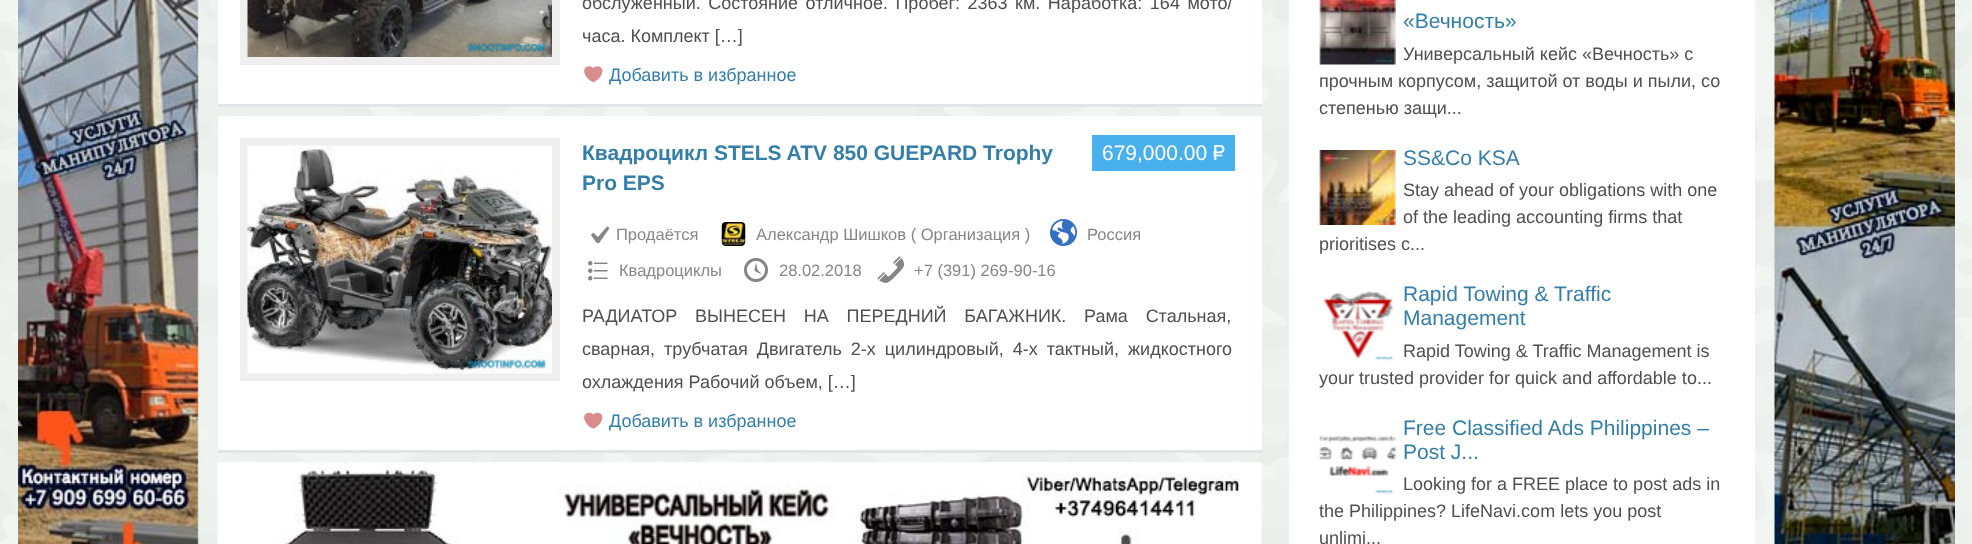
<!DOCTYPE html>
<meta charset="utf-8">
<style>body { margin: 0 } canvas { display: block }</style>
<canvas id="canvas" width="1972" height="544"></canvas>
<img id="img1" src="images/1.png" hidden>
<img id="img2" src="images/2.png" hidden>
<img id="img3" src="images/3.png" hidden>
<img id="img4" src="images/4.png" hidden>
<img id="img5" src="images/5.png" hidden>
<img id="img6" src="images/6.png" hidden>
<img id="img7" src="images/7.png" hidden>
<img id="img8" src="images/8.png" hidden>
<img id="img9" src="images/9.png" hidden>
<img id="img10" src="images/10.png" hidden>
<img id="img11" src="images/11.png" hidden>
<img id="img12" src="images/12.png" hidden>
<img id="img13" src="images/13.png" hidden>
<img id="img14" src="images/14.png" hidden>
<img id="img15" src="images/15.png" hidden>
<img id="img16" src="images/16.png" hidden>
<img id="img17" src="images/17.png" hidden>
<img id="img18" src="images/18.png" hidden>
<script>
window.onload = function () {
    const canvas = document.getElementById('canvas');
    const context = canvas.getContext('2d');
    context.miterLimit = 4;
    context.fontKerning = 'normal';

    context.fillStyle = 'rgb(243, 248, 244)';
    context.fillRect(0, 0, 1972, 544);
    context.drawImage(document.getElementById('img1'), 0, 0, 1972, 544);
    context.drawImage(document.getElementById('img2'), 18, 0, 181, 544);
    context.drawImage(document.getElementById('img3'), 1774, 0, 181, 544);
    context.fillStyle = 'rgb(227, 228, 231)';
    context.beginPath();
    context.moveTo(218, 104);
    context.lineTo(218, 107);
    context.lineTo(1262, 107);
    context.lineTo(1262, -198);
    context.lineTo(1262, 104);
    context.closePath();
    context.fill();
    context.fillStyle = 'rgb(255, 255, 255)';
    context.fillRect(218, 0, 1044, 104);
    context.fillStyle = 'rgb(239, 239, 239)';
    context.fillRect(240, 0, 320, 65);
    context.drawImage(document.getElementById('img4'), 247, 0, 305, 57);
    context.drawImage(document.getElementById('img5'), 584, 66, 19, 17);
    context.fillStyle = 'rgb(227, 228, 231)';
    context.beginPath();
    context.moveTo(218, 450);
    context.lineTo(218, 453);
    context.lineTo(1262, 453);
    context.lineTo(1262, 119);
    context.lineTo(1262, 450);
    context.closePath();
    context.fill();
    context.fillStyle = 'rgb(255, 255, 255)';
    context.fillRect(218, 116, 1044, 334);
    context.fillStyle = 'rgb(239, 239, 239)';
    context.fillRect(240, 138, 320, 243);
    context.drawImage(document.getElementById('img6'), 247, 145, 305, 229);
    context.fillStyle = 'rgb(71, 176, 237)';
    context.fillRect(1092, 135, 143, 36);
    context.drawImage(document.getElementById('img7'), 591, 226, 19, 18);
    context.drawImage(document.getElementById('img8'), 721, 222, 25, 24);
    context.drawImage(document.getElementById('img9'), 1050, 219, 27, 27);
    context.drawImage(document.getElementById('img10'), 588, 261, 20, 20);
    context.drawImage(document.getElementById('img11'), 744, 258, 24, 24);
    context.drawImage(document.getElementById('img12'), 877, 256, 28, 27);
    context.drawImage(document.getElementById('img13'), 584, 412, 19, 17);
    context.fillStyle = 'rgb(255, 255, 255)';
    context.fillRect(1289, 0, 466, 544);
    context.drawImage(document.getElementById('img14'), 1319, 0, 77, 65);
    context.drawImage(document.getElementById('img15'), 1319, 150, 77, 75);
    context.drawImage(document.getElementById('img16'), 1323, 291, 71, 70);
    context.drawImage(document.getElementById('img17'), 1319, 435, 77, 59);
    context.drawImage(document.getElementById('img18'), 217, 462, 1045, 82);
    context.wordSpacing = '2.5px';
    context.font = '18px Liberation Sans';
    context.fillStyle = 'rgb(79, 79, 79)';
    context.fillText('обслуженный. Состояние отличное. Пробег: 2363 км. Наработка: 164 мото/', 582, 9);
    context.wordSpacing = '0px';
    context.fillText('часа. Комплект […]', 582, 42);
    context.fillStyle = 'rgb(52, 126, 169)';
    context.fillText('Добавить в избранное', 609, 81);
    context.font = 'bold 21px Liberation Sans';
    context.fillText('Квадроцикл STELS ATV 850 GUEPARD Trophy', 582, 160);
    context.fillText('Pro EPS', 582, 190);
    context.font = '21px Liberation Sans';
    context.fillStyle = 'rgb(255, 255, 255)';
    context.fillText('679,000.00', 1102, 160);
    context.font = '21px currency';
    context.fillText('₽', 1213, 160);
    context.font = '16.5px Liberation Sans';
    context.fillStyle = 'rgb(134, 134, 134)';
    context.fillText('Продаётся', 616, 240);
    context.fillText('Александр Шишков ( Организация )', 756, 240);
    context.fillText('Россия', 1087, 240);
    context.fillText('Квадроциклы', 619, 276);
    context.fillText('28.02.2018', 779, 276);
    context.fillText('+7 (391) 269-90-16', 914, 276);
    context.wordSpacing = '12.75px';
    context.font = '18px Liberation Sans';
    context.fillStyle = 'rgb(79, 79, 79)';
    context.fillText('РАДИАТОР ВЫНЕСЕН НА ПЕРЕДНИЙ БАГАЖНИК. Рама Стальная,', 582, 322);
    context.wordSpacing = '4px';
    context.fillText('сварная, трубчатая Двигатель 2-х цилиндровый, 4-х тактный, жидкостного', 582, 355);
    context.wordSpacing = '0px';
    context.fillText('охлаждения Рабочий объем, […]', 582, 388);
    context.fillStyle = 'rgb(52, 126, 169)';
    context.fillText('Добавить в избранное', 609, 427);
    context.font = '21px Liberation Sans';
    context.fillText('«Вечность»', 1403, 28);
    context.font = '18px Liberation Sans';
    context.fillStyle = 'rgb(79, 79, 79)';
    context.fillText('Универсальный кейс «Вечность» с', 1403, 60);
    context.fillText('прочным корпусом, защитой от воды и пыли, со', 1319, 87);
    context.fillText('степенью защи...', 1319, 114);
    context.font = '21px Liberation Sans';
    context.fillStyle = 'rgb(52, 126, 169)';
    context.fillText('SS&Co KSA', 1403, 165);
    context.font = '18px Liberation Sans';
    context.fillStyle = 'rgb(79, 79, 79)';
    context.fillText('Stay ahead of your obligations with one', 1403, 196);
    context.fillText('of the leading accounting firms that', 1403, 223);
    context.fillText('prioritises c...', 1319, 250);
    context.font = '21px Liberation Sans';
    context.fillStyle = 'rgb(52, 126, 169)';
    context.fillText('Rapid Towing & Traffic', 1403, 301);
    context.fillText('Management', 1403, 325);
    context.font = '18px Liberation Sans';
    context.fillStyle = 'rgb(79, 79, 79)';
    context.fillText('Rapid Towing & Traffic Management is', 1403, 357);
    context.fillText('your trusted provider for quick and affordable to...', 1319, 384);
    context.font = '21px Liberation Sans';
    context.fillStyle = 'rgb(52, 126, 169)';
    context.fillText('Free Classified Ads Philippines –', 1403, 435);
    context.fillText('Post J...', 1403, 459);
    context.font = '18px Liberation Sans';
    context.fillStyle = 'rgb(79, 79, 79)';
    context.fillText('Looking for a FREE place to post ads in', 1403, 490);
    context.fillText('the Philippines? LifeNavi.com lets you post', 1319, 517);
    context.fillText('unlimi...', 1319, 544);
};
</script>
